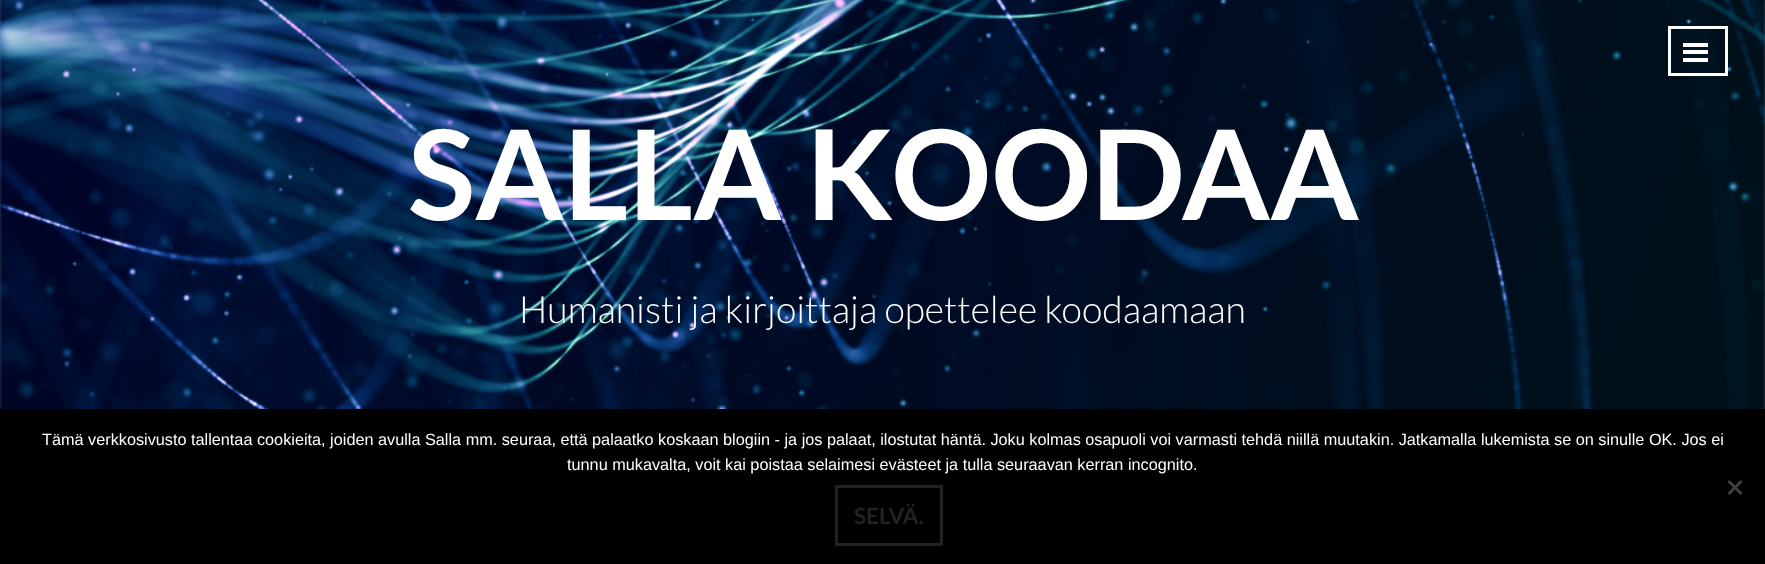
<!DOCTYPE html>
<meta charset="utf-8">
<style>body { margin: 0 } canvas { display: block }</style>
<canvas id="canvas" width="1765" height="564"></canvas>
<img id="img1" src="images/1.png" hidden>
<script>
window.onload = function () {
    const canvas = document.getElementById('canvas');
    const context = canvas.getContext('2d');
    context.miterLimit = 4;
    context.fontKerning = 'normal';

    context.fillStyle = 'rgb(255, 255, 255)';
    context.fillRect(0, 0, 1765, 564);
    context.drawImage(document.getElementById('img1'), 0, 0, 1765, 409);
    context.strokeStyle = 'rgb(255, 255, 255)';
    context.lineWidth = 3;
    context.strokeRect(1669.5, 27.5, 57, 47);
    context.fillRect(1683, 50, 25, 4);
    context.fillRect(1683, 43, 25, 4);
    context.fillRect(1683, 58, 25, 4);
    context.fillStyle = 'rgb(0, 0, 0)';
    context.fillRect(0, 409, 1765, 155);
    context.fillStyle = 'rgb(64, 64, 64)';
    context.beginPath();
    context.moveTo(1740.5, 480);
    context.lineTo(1742.5, 482);
    context.lineTo(1729.5, 495);
    context.lineTo(1727.5, 493);
    context.closePath();
    context.fill();
    context.beginPath();
    context.moveTo(1727.5, 482);
    context.lineTo(1729.5, 480);
    context.lineTo(1742.5, 493);
    context.lineTo(1740.5, 495);
    context.closePath();
    context.fill();
    context.strokeStyle = 'rgb(34, 34, 34)';
    context.strokeRect(836.5, 486.5, 105, 58);
    context.font = 'bold 125px Lato';
    context.fillStyle = 'rgb(255, 255, 255)';
    context.fillText('SALLA KOODAA', 408, 220);
    context.font = '300 37.5px Lato';
    context.fillText('Humanisti ja kirjoittaja opettelee koodaamaan', 519, 323);
    context.font = '16.25px Liberation Sans';
    context.fillText('Tämä verkkosivusto tallentaa cookieita, joiden avulla Salla mm. seuraa, että palaatko koskaan blogiin - ja jos palaat, ilostutat häntä. Joku kolmas osapuoli voi varmasti tehdä niillä muutakin. Jatkamalla lukemista se on sinulle OK. Jos ei', 42, 445);
    context.fillText('tunnu mukavalta, voit kai poistaa selaimesi evästeet ja tulla seuraavan kerran incognito.', 567, 470);
    context.font = 'bold 22.5px Lato';
    context.fillStyle = 'rgb(34, 34, 34)';
    context.fillText('SELVÄ.', 854, 524);
};
</script>
